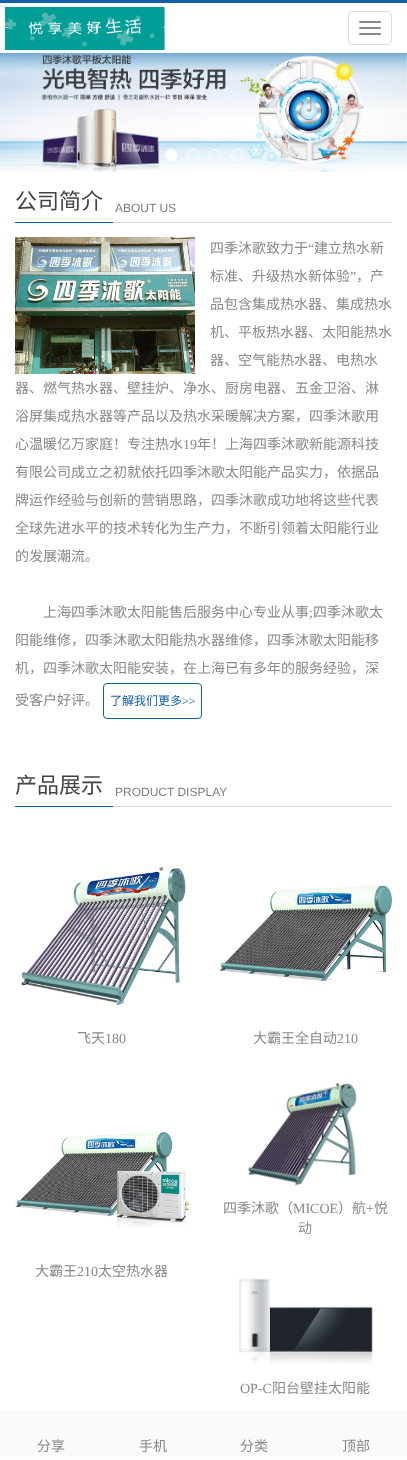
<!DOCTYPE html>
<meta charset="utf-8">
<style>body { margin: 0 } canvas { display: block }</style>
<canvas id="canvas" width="407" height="1460"></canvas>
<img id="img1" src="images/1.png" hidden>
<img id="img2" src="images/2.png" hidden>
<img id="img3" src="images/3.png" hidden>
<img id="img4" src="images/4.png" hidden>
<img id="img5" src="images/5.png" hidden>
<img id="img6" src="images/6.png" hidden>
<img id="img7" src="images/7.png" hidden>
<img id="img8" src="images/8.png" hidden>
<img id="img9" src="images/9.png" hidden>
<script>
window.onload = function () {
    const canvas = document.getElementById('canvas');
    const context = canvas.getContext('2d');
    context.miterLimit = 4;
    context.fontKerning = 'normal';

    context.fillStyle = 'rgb(255, 255, 255)';
    context.fillRect(0, 0, 407, 1460);
    context.fillStyle = 'rgb(18, 96, 170)';
    context.fillRect(0, 0, 407, 3);
    context.drawImage(document.getElementById('img1'), 5, 7, 160, 43);
    context.beginPath();
    context.roundRect(348.5, 11.5, 43, 33, 3.5);
    context.strokeStyle = 'rgb(221, 221, 221)';
    context.stroke();
    context.fillStyle = 'rgb(136, 136, 136)';
    context.beginPath();
    context.roundRect(359, 21, 22, 2, 1);
    context.fill();
    context.beginPath();
    context.roundRect(359, 27, 22, 2, 1);
    context.fill();
    context.beginPath();
    context.roundRect(359, 33, 22, 2, 1);
    context.fill();
    context.drawImage(document.getElementById('img2'), 0, 53, 407, 119);
    context.fillStyle = 'rgb(255, 255, 255)';
    context.beginPath();
    context.arc(171, 155, 5.5, 0, 2 * Math.PI);
    context.fill();
    context.strokeStyle = 'rgb(255, 255, 255)';
    context.stroke();
    context.beginPath();
    context.arc(193, 155, 5.5, 0, 2 * Math.PI);
    context.stroke();
    context.beginPath();
    context.arc(215, 155, 5.5, 0, 2 * Math.PI);
    context.stroke();
    context.beginPath();
    context.arc(237, 155, 5.5, 0, 2 * Math.PI);
    context.stroke();
    context.drawImage(document.getElementById('img3'), 15, 220, 377, 3);
    context.drawImage(document.getElementById('img4'), 15, 237, 180, 137);
    context.beginPath();
    context.roundRect(103.5, 683.5, 98, 35, 3.5);
    context.strokeStyle = 'rgb(18, 96, 170)';
    context.stroke();
    context.drawImage(document.getElementById('img3'), 15, 804, 377, 3);
    context.drawImage(document.getElementById('img5'), 21, 866, 165, 139);
    context.drawImage(document.getElementById('img6'), 219, 885, 173, 97);
    context.drawImage(document.getElementById('img7'), 248, 1082, 109, 104);
    context.drawImage(document.getElementById('img8'), 15, 1131, 174, 97);
    context.drawImage(document.getElementById('img9'), 239, 1278, 134, 86);
    context.fillStyle = 'rgb(250, 250, 250)';
    context.fillRect(0, 1410, 407, 47);
    context.font = '22px Noto Sans CJK SC';
    context.fillStyle = 'rgb(67, 67, 67)';
    context.fillText('公司简介', 15, 209);
    context.font = '12px Liberation Sans';
    context.fillStyle = 'rgb(125, 125, 125)';
    context.fillText('ABOUT US', 115, 212);
    context.font = '14px Noto Sans CJK SC';
    context.fillStyle = 'rgb(137, 137, 137)';
    context.fillText('四季沐歌致力于', 210, 253);
    context.font = '14px Liberation Serif';
    context.fillText('“', 308, 253);
    context.font = '14px Noto Sans CJK SC';
    context.fillText('建立热水新', 314, 253);
    context.fillText('标准、升级热水新体验', 210, 281);
    context.font = '14px Liberation Serif';
    context.fillText('”', 350, 281);
    context.font = '14px Noto Sans CJK SC';
    context.fillText('，产', 356, 281);
    context.fillText('品包含集成热水器、集成热水', 210, 309);
    context.fillText('机、平板热水器、太阳能热水', 210, 337);
    context.fillText('器、空气能热水器、电热水', 210, 365);
    context.fillText('器、燃气热水器、壁挂炉、净水、厨房电器、五金卫浴、淋', 15, 393);
    context.fillText('浴屏集成热水器等产品以及热水采暖解决方案，四季沐歌用', 15, 421);
    context.fillText('心温暖亿万家庭！专注热水', 15, 449);
    context.font = '14px Liberation Serif';
    context.fillText('19', 183, 449);
    context.font = '14px Noto Sans CJK SC';
    context.fillText('年！上海四季沐歌新能源科技', 197, 449);
    context.fillText('有限公司成立之初就依托四季沐歌太阳能产品实力，依据品', 15, 477);
    context.fillText('牌运作经验与创新的营销思路，四季沐歌成功地将这些代表', 15, 505);
    context.fillText('全球先进水平的技术转化为生产力，不断引领着太阳能行业', 15, 533);
    context.fillText('的发展潮流。', 15, 561);
    context.fillText('上海四季沐歌太阳能售后服务中心专业从事', 43, 617);
    context.font = '14px Liberation Serif';
    context.fillText(';', 309, 617);
    context.font = '14px Noto Sans CJK SC';
    context.fillText('四季沐歌太', 313, 617);
    context.fillText('阳能维修，四季沐歌太阳能热水器维修，四季沐歌太阳能移', 15, 645);
    context.fillText('机，四季沐歌太阳能安装，在上海已有多年的服务经验，深', 15, 673);
    context.fillText('受客户好评。', 15, 705);
    context.font = '12px Noto Sans CJK SC';
    context.fillStyle = 'rgb(18, 96, 170)';
    context.fillText('了解我们更多', 110, 705);
    context.font = '12px Liberation Serif';
    context.fillText('>>', 182, 705);
    context.font = '22px Noto Sans CJK SC';
    context.fillStyle = 'rgb(67, 67, 67)';
    context.fillText('产品展示', 15, 793);
    context.font = '12px Liberation Sans';
    context.fillStyle = 'rgb(125, 125, 125)';
    context.fillText('PRODUCT DISPLAY', 115, 796);
    context.font = '14px Noto Sans CJK SC';
    context.fillStyle = 'rgb(137, 137, 137)';
    context.fillText('飞天', 77, 1043);
    context.font = '14px Liberation Serif';
    context.fillText('180', 105, 1043);
    context.font = '14px Noto Sans CJK SC';
    context.fillText('大霸王全自动', 253, 1043);
    context.font = '14px Liberation Serif';
    context.fillText('210', 337, 1043);
    context.font = '14px Noto Sans CJK SC';
    context.fillText('四季沐歌（', 223, 1213);
    context.font = '14px Liberation Serif';
    context.fillText('MICOE', 293, 1213);
    context.font = '14px Noto Sans CJK SC';
    context.fillText('）航', 338, 1213);
    context.font = '14px Liberation Serif';
    context.fillText('+', 366, 1213);
    context.font = '14px Noto Sans CJK SC';
    context.fillText('悦', 374, 1213);
    context.fillText('动', 298, 1233);
    context.fillText('大霸王', 35, 1276);
    context.font = '14px Liberation Serif';
    context.fillText('210', 77, 1276);
    context.font = '14px Noto Sans CJK SC';
    context.fillText('太空热水器', 98, 1276);
    context.font = '14px Liberation Serif';
    context.fillText('OP-C', 240, 1393);
    context.font = '14px Noto Sans CJK SC';
    context.fillText('阳台壁挂太阳能', 272, 1393);
    context.fillText('分享', 37, 1451);
    context.fillText('手机', 139, 1451);
    context.fillText('分类', 240, 1451);
    context.fillText('顶部', 342, 1451);
};
</script>
